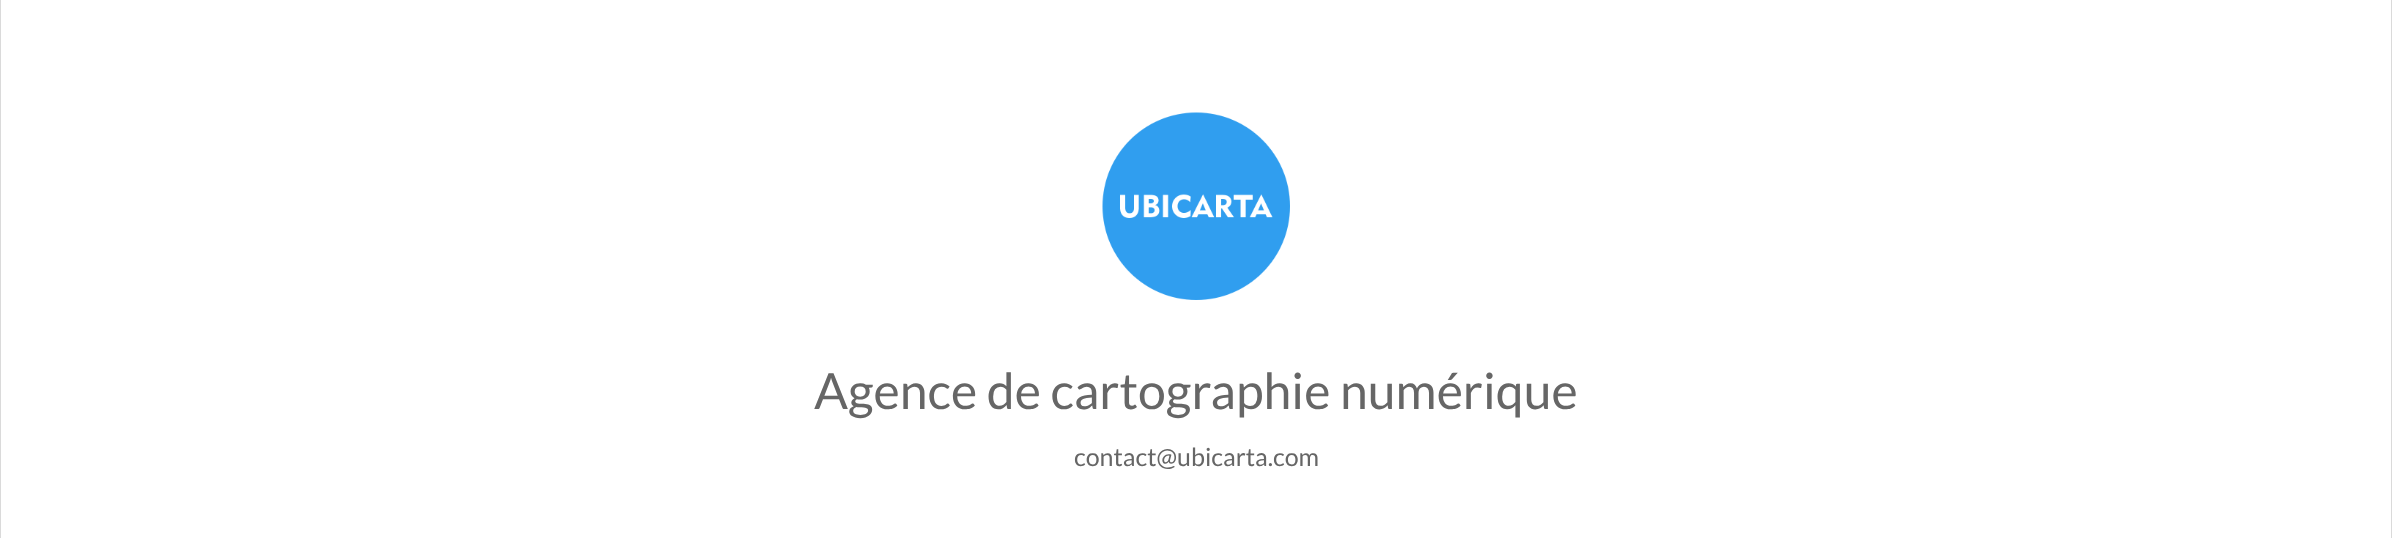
<!DOCTYPE html>
<meta charset="utf-8">
<style>body { margin: 0 } canvas { display: block }</style>
<canvas id="canvas" width="2392" height="538"></canvas>
<img id="img1" src="images/1.png" hidden>
<script>
window.onload = function () {
    const canvas = document.getElementById('canvas');
    const context = canvas.getContext('2d');
    context.miterLimit = 4;
    context.fontKerning = 'normal';

    context.fillStyle = 'rgb(255, 255, 255)';
    context.fillRect(0, 0, 2392, 538);
    context.fillStyle = 'rgb(218, 218, 218)';
    context.fillRect(2391, 0, 1, 538);
    context.fillRect(0, 0, 1, 538);
    context.drawImage(document.getElementById('img1'), 1102, 112, 188, 188);
    context.font = '50px Lato';
    context.fillStyle = 'rgb(102, 102, 102)';
    context.fillText('Agence de cartographie numérique', 814, 409);
    context.font = '25px Lato';
    context.fillText('contact@ubicarta.com', 1074, 466);
};
</script>
